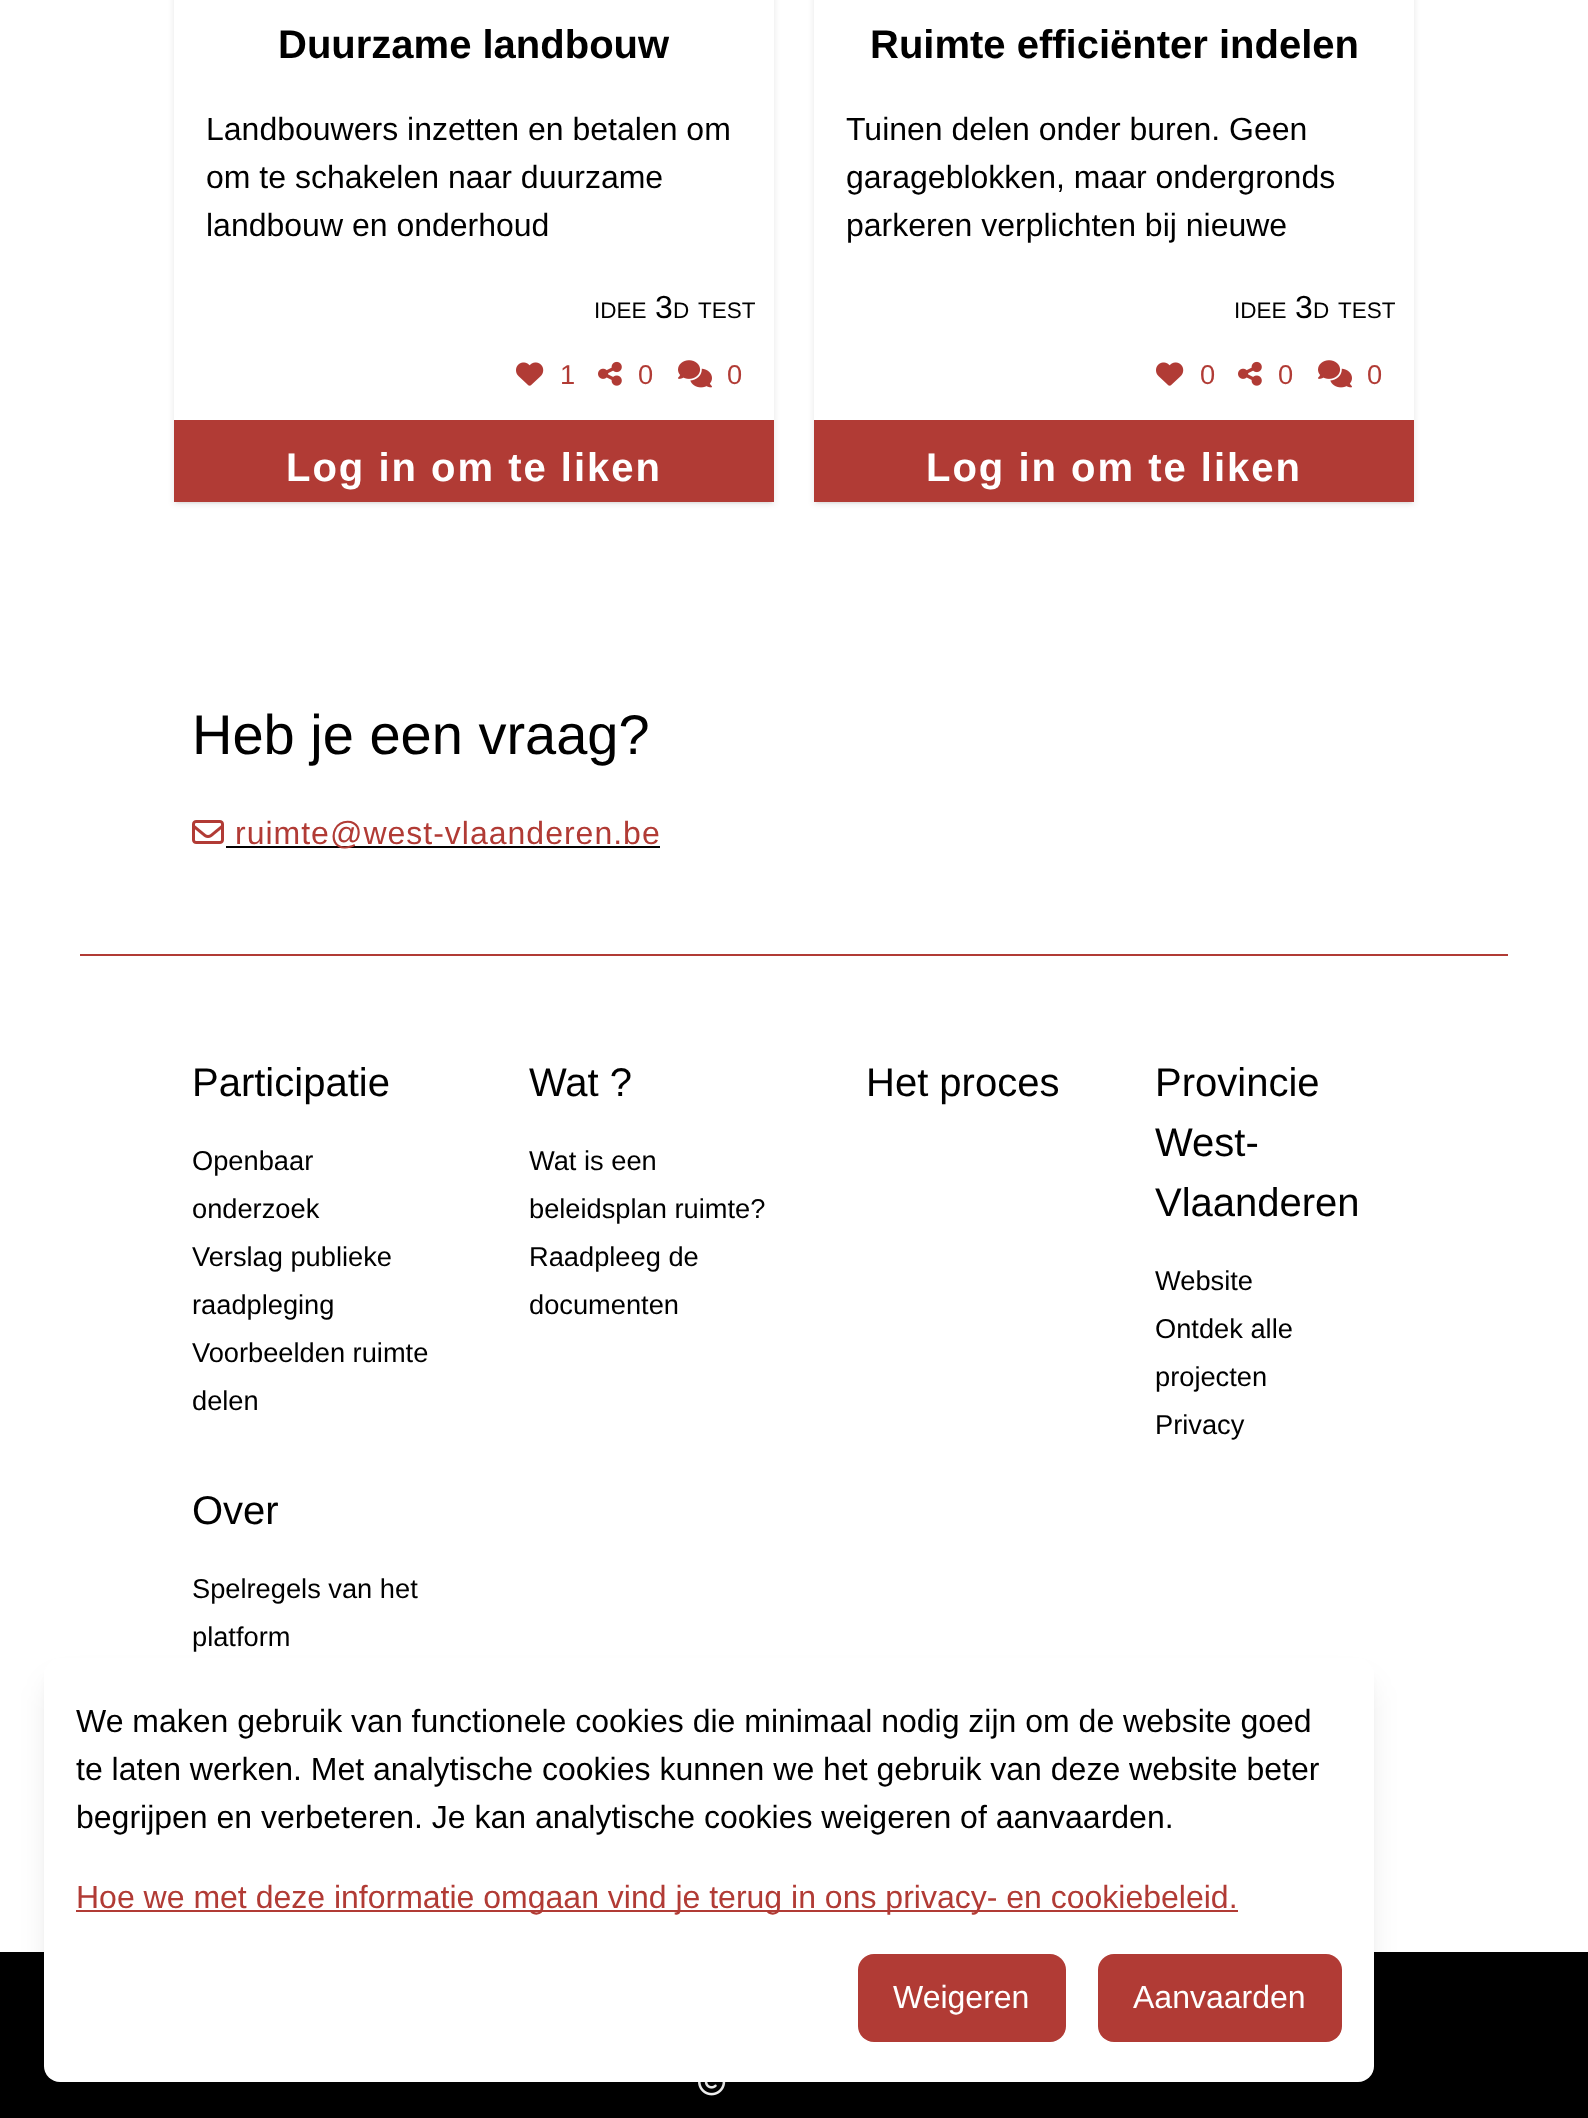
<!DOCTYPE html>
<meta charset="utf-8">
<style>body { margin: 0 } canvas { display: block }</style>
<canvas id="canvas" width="1588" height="2118"></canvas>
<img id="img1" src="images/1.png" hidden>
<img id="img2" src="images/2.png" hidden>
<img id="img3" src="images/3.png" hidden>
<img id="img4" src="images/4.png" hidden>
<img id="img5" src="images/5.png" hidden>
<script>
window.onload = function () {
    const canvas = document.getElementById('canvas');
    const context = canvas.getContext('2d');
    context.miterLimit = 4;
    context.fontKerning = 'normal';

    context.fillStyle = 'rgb(255, 255, 255)';
    context.fillRect(0, 0, 1588, 2118);
    context.save();
    context.beginPath();
    context.rect(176, 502, 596, 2);
    context.clip();
    context.fillStyle = 'rgba(0, 0, 0, 0.1)';
    context.filter = 'blur(2px)';
    context.beginPath();
    context.rect(176, -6, 596, 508);
    context.fill();
    context.filter = 'none';
    context.restore();
    context.save();
    context.beginPath();
    context.moveTo(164, 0);
    context.lineTo(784, 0);
    context.lineTo(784, 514);
    context.lineTo(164, 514);
    context.closePath();
    context.moveTo(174, -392);
    context.lineTo(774, -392);
    context.lineTo(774, 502);
    context.lineTo(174, 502);
    context.closePath();
    context.clip('evenodd');
    context.fillStyle = 'rgba(0, 0, 0, 0.1)';
    context.filter = 'blur(3px)';
    context.beginPath();
    context.rect(174, -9, 600, 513);
    context.fill();
    context.filter = 'none';
    context.restore();
    context.drawImage(document.getElementById('img1'), 516, 362, 28, 24);
    context.drawImage(document.getElementById('img2'), 598, 361, 24, 25);
    context.drawImage(document.getElementById('img3'), 678, 360, 34, 28);
    context.fillStyle = 'rgb(177, 59, 53)';
    context.fillRect(174, 420, 600, 82);
    context.save();
    context.beginPath();
    context.rect(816, 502, 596, 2);
    context.clip();
    context.fillStyle = 'rgba(0, 0, 0, 0.1)';
    context.filter = 'blur(2px)';
    context.beginPath();
    context.rect(816, -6, 596, 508);
    context.fill();
    context.filter = 'none';
    context.restore();
    context.save();
    context.beginPath();
    context.moveTo(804, 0);
    context.lineTo(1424, 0);
    context.lineTo(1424, 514);
    context.lineTo(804, 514);
    context.closePath();
    context.moveTo(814, -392);
    context.lineTo(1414, -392);
    context.lineTo(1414, 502);
    context.lineTo(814, 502);
    context.closePath();
    context.clip('evenodd');
    context.fillStyle = 'rgba(0, 0, 0, 0.1)';
    context.filter = 'blur(3px)';
    context.beginPath();
    context.rect(814, -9, 600, 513);
    context.fill();
    context.filter = 'none';
    context.restore();
    context.drawImage(document.getElementById('img1'), 1156, 362, 28, 24);
    context.drawImage(document.getElementById('img2'), 1238, 361, 24, 25);
    context.drawImage(document.getElementById('img3'), 1318, 360, 34, 28);
    context.fillRect(814, 420, 600, 82);
    context.drawImage(document.getElementById('img4'), 192, 820, 32, 24);
    context.fillStyle = 'rgb(0, 0, 0)';
    context.fillRect(226, 846, 434, 2);
    context.fillStyle = 'rgb(177, 59, 53)';
    context.fillRect(80, 954, 1428, 2);
    context.fillStyle = 'rgb(0, 0, 0)';
    context.fillRect(0, 1952, 1588, 166);
    context.drawImage(document.getElementById('img5'), 698, 2082, 28, 14);
    context.fillStyle = 'rgba(0, 0, 0, 0.1)';
    context.filter = 'blur(6px)';
    context.beginPath();
    context.roundRect(52, 1674, 1314, 408, 8);
    context.fill();
    context.filter = 'none';
    context.filter = 'blur(15px)';
    context.beginPath();
    context.roundRect(50, 1684, 1318, 412, 10);
    context.fill();
    context.filter = 'none';
    context.fillStyle = 'rgb(255, 255, 255)';
    context.beginPath();
    context.roundRect(44, 1658, 1330, 424, 16);
    context.fill();
    context.fillStyle = 'rgb(177, 59, 53)';
    context.fillRect(76, 1910, 1162, 2);
    context.beginPath();
    context.roundRect(858, 1954, 208, 88, 16);
    context.fill();
    context.beginPath();
    context.roundRect(1098, 1954, 244, 88, 16);
    context.fill();
    context.font = 'bold 40px Arimo';
    context.fillStyle = 'rgb(0, 0, 0)';
    context.fillText('Duurzame landbouw', 278, 58);
    context.font = '32px Arimo';
    context.fillText('Landbouwers inzetten en betalen om', 206, 140);
    context.fillText('om te schakelen naar duurzame', 206, 188);
    context.fillText('landbouw en onderhoud', 206, 236);
    context.font = '22.5px Arimo';
    context.fillText('IDEE', 594, 318);
    context.font = '32px Arimo';
    context.fillText('3', 655, 318);
    context.font = '22.5px Arimo';
    context.fillText('D', 673, 318);
    context.fillText('TEST', 698, 318);
    context.font = '27.25px Arimo';
    context.fillStyle = 'rgb(177, 59, 53)';
    context.fillText('1', 560, 384);
    context.fillText('0', 638, 384);
    context.fillText('0', 727, 384);
    context.letterSpacing = '2px';
    context.font = 'bold 40px Arimo';
    context.fillStyle = 'rgb(255, 255, 255)';
    context.fillText('Log in om te liken', 286, 481);
    context.letterSpacing = '0px';
    context.fillStyle = 'rgb(0, 0, 0)';
    context.fillText('Ruimte efficiënter indelen', 870, 58);
    context.font = '32px Arimo';
    context.fillText('Tuinen delen onder buren. Geen', 846, 140);
    context.fillText('garageblokken, maar ondergronds', 846, 188);
    context.fillText('parkeren verplichten bij nieuwe', 846, 236);
    context.font = '22.5px Arimo';
    context.fillText('IDEE', 1234, 318);
    context.font = '32px Arimo';
    context.fillText('3', 1295, 318);
    context.font = '22.5px Arimo';
    context.fillText('D', 1313, 318);
    context.fillText('TEST', 1338, 318);
    context.font = '27.25px Arimo';
    context.fillStyle = 'rgb(177, 59, 53)';
    context.fillText('0', 1200, 384);
    context.fillText('0', 1278, 384);
    context.fillText('0', 1367, 384);
    context.letterSpacing = '2px';
    context.font = 'bold 40px Arimo';
    context.fillStyle = 'rgb(255, 255, 255)';
    context.fillText('Log in om te liken', 926, 481);
    context.letterSpacing = '0px';
    context.font = '56px Arimo';
    context.fillStyle = 'rgb(0, 0, 0)';
    context.fillText('Heb je een vraag?', 192, 754);
    context.letterSpacing = '1px';
    context.font = '32px Arimo';
    context.fillStyle = 'rgb(177, 59, 53)';
    context.fillText('ruimte@west-vlaanderen.be', 235, 844);
    context.letterSpacing = '0px';
    context.font = '40px Arimo';
    context.fillStyle = 'rgb(0, 0, 0)';
    context.fillText('Participatie', 192, 1096);
    context.font = '27.25px Arimo';
    context.fillText('Openbaar', 192, 1170);
    context.fillText('onderzoek', 192, 1218);
    context.fillText('Verslag publieke', 192, 1266);
    context.fillText('raadpleging', 192, 1314);
    context.fillText('Voorbeelden ruimte', 192, 1362);
    context.fillText('delen', 192, 1410);
    context.font = '40px Arimo';
    context.fillText('Wat ?', 529, 1096);
    context.font = '27.25px Arimo';
    context.fillText('Wat is een', 529, 1170);
    context.fillText('beleidsplan ruimte?', 529, 1218);
    context.fillText('Raadpleeg de', 529, 1266);
    context.fillText('documenten', 529, 1314);
    context.font = '40px Arimo';
    context.fillText('Het proces', 866, 1096);
    context.fillText('Provincie', 1155, 1096);
    context.fillText('West-', 1155, 1156);
    context.fillText('Vlaanderen', 1155, 1216);
    context.font = '27.25px Arimo';
    context.fillText('Website', 1155, 1290);
    context.fillText('Ontdek alle', 1155, 1338);
    context.fillText('projecten', 1155, 1386);
    context.fillText('Privacy', 1155, 1434);
    context.font = '40px Arimo';
    context.fillText('Over', 192, 1524);
    context.font = '27.25px Arimo';
    context.fillText('Spelregels van het', 192, 1598);
    context.fillText('platform', 192, 1646);
    context.font = '32px Arimo';
    context.fillText('We maken gebruik van functionele cookies die minimaal nodig zijn om de website goed', 76, 1732);
    context.fillText('te laten werken. Met analytische cookies kunnen we het gebruik van deze website beter', 76, 1780);
    context.fillText('begrijpen en verbeteren. Je kan analytische cookies weigeren of aanvaarden.', 76, 1828);
    context.fillStyle = 'rgb(177, 59, 53)';
    context.fillText('Hoe we met deze informatie omgaan vind je terug in ons privacy- en cookiebeleid.', 76, 1908);
    context.fillStyle = 'rgb(255, 255, 255)';
    context.fillText('Weigeren', 893, 2008);
    context.fillText('Aanvaarden', 1133, 2008);
};
</script>
